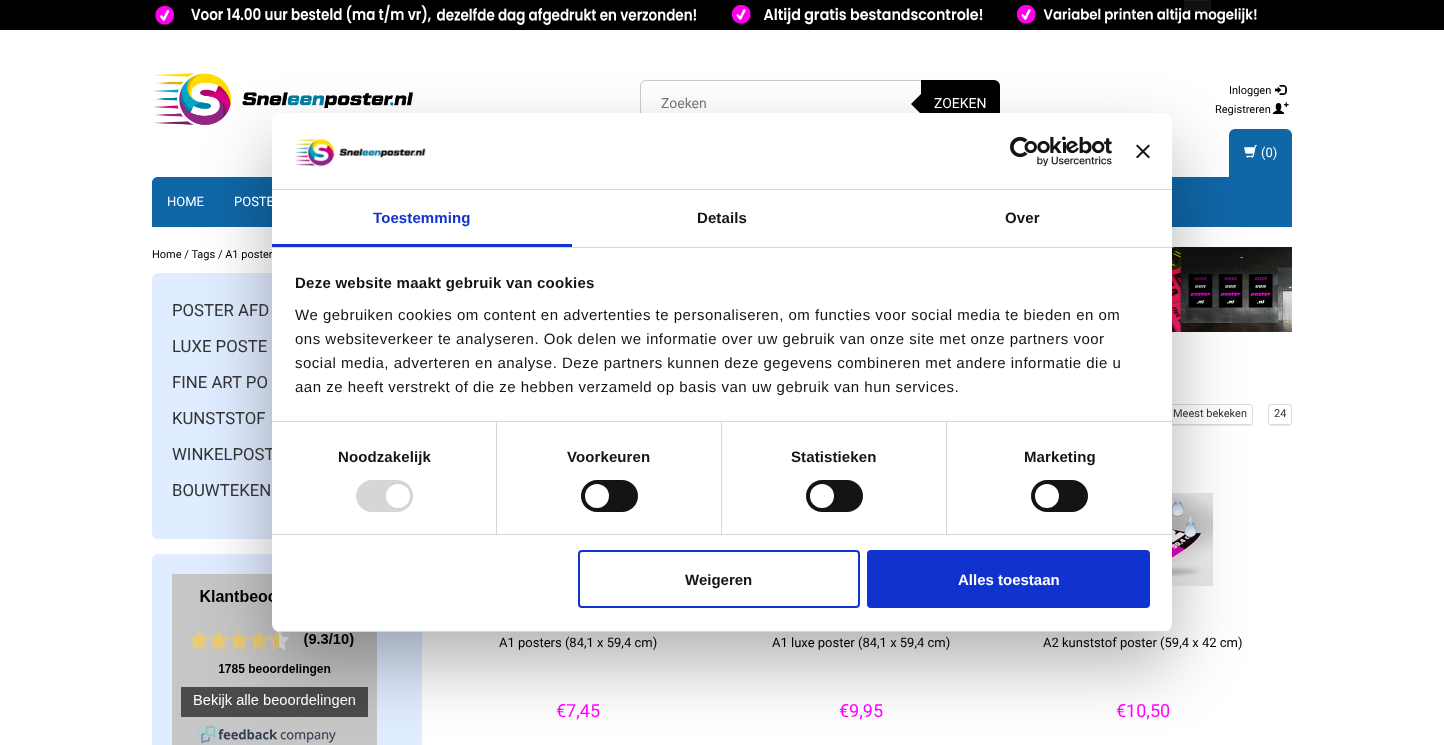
<!DOCTYPE html>
<meta charset="utf-8">
<style>body { margin: 0 } canvas { display: block }</style>
<canvas id="canvas" width="1444" height="745"></canvas>
<img id="img1" src="images/1.png" hidden>
<img id="img2" src="images/2.png" hidden>
<img id="img3" src="images/3.png" hidden>
<img id="img4" src="images/4.png" hidden>
<img id="img5" src="images/5.png" hidden>
<img id="img6" src="images/6.png" hidden>
<img id="img7" src="images/7.png" hidden>
<img id="img8" src="images/8.png" hidden>
<img id="img9" src="images/9.png" hidden>
<img id="img10" src="images/13.png" hidden>
<img id="img11" src="images/14.png" hidden>
<img id="img12" src="images/15.png" hidden>
<img id="img13" src="images/12.png" hidden>
<img id="img14" src="images/11.png" hidden>
<img id="img15" src="images/10.png" hidden>
<script>
window.onload = function () {
    const canvas = document.getElementById('canvas');
    const context = canvas.getContext('2d');
    context.miterLimit = 4;
    context.fontKerning = 'normal';

    context.fillStyle = 'rgb(255, 255, 255)';
    context.fillRect(0, 0, 1444, 745);
    context.fillStyle = 'rgb(0, 0, 0)';
    context.fillRect(0, 0, 1444, 30);
    context.drawImage(document.getElementById('img1'), 155, 4, 276, 21);
    context.drawImage(document.getElementById('img2'), 437, 8, 259, 17);
    context.drawImage(document.getElementById('img3'), 732, 5, 251, 20);
    context.drawImage(document.getElementById('img4'), 1017, 0, 240, 24);
    context.drawImage(document.getElementById('img5'), 153, 73, 260, 52);
    context.beginPath();
    context.roundRect(640.5, 80.5, 281, 45, [5.5, 0, 0, 5.5]);
    context.strokeStyle = 'rgb(204, 204, 204)';
    context.stroke();
    context.beginPath();
    context.roundRect(921, 80, 79, 46, [0, 6, 6, 0]);
    context.fill();
    context.beginPath();
    context.moveTo(922, 93);
    context.lineTo(922, 115);
    context.lineTo(911, 104);
    context.closePath();
    context.fill();
    context.drawImage(document.getElementById('img6'), 1275, 84, 12, 11);
    context.drawImage(document.getElementById('img7'), 1273, 103, 11, 11);
    context.drawImage(document.getElementById('img8'), 1284, 102, 5, 5);
    context.fillStyle = 'rgb(16, 103, 168)';
    context.beginPath();
    context.roundRect(152, 177, 1140, 50, [6, 0, 0, 0]);
    context.fill();
    context.beginPath();
    context.roundRect(1229, 129, 63, 48, [6, 6, 0, 0]);
    context.fill();
    context.drawImage(document.getElementById('img9'), 1244, 145, 13, 13);
    context.beginPath();
    context.roundRect(152, 177, 67, 50, [6, 0, 0, 0]);
    context.fill();
    context.fillStyle = 'rgb(224, 236, 255)';
    context.beginPath();
    context.roundRect(152, 273, 270, 266, 6);
    context.fill();
    context.beginPath();
    context.roundRect(152, 554, 270, 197, 6);
    context.fill();
    context.drawImage(document.getElementById('img10'), 172, 574, 205, 171);
    context.drawImage(document.getElementById('img11'), 1172, 247, 120, 85);
    context.fillStyle = 'rgba(34, 25, 25, 0.1)';
    context.filter = 'blur(0.5px)';
    context.beginPath();
    context.roundRect(1167, 405, 86, 21, 3);
    context.fill();
    context.filter = 'none';
    context.fillStyle = 'rgb(255, 255, 255)';
    context.beginPath();
    context.roundRect(1167.5, 404.5, 85, 20, 2.5);
    context.fill();
    context.strokeStyle = 'rgb(221, 221, 221)';
    context.stroke();
    context.fillStyle = 'rgba(34, 25, 25, 0.1)';
    context.filter = 'blur(0.5px)';
    context.beginPath();
    context.roundRect(1268, 405, 24, 21, 3);
    context.fill();
    context.filter = 'none';
    context.fillStyle = 'rgb(255, 255, 255)';
    context.beginPath();
    context.roundRect(1268.5, 404.5, 23, 20, 2.5);
    context.fill();
    context.stroke();
    context.drawImage(document.getElementById('img12'), 1172, 493, 41, 93);
    context.fillStyle = 'rgba(0, 0, 0, 0.3)';
    context.filter = 'blur(34px)';
    context.beginPath();
    context.roundRect(272, 145, 900, 519, 8);
    context.fill();
    context.filter = 'none';
    context.font = '14px Roboto';
    context.fillStyle = 'rgb(119, 119, 119)';
    context.fillText('Zoeken', 661, 108);
    context.fillStyle = 'rgb(255, 255, 255)';
    context.fillText('ZOEKEN', 934, 108);
    context.font = '11px Roboto';
    context.fillStyle = 'rgb(0, 0, 0)';
    context.fillText('Inloggen', 1229, 94);
    context.fillText('Registreren', 1215, 113);
    context.font = '13px Roboto';
    context.fillStyle = 'rgb(255, 255, 255)';
    context.fillText('(0)', 1261, 157);
    context.fillText('HOME', 167, 206);
    context.fillText('POSTE', 234, 206);
    context.font = '11px Roboto';
    context.fillStyle = 'rgb(0, 0, 0)';
    context.fillText('Home / Tags / A1 poster', 152, 258);
    context.font = '16.75px Roboto';
    context.fillStyle = 'rgb(51, 51, 51)';
    context.fillText('POSTER AFD', 172, 316);
    context.fillText('LUXE POSTE', 172, 352);
    context.fillText('FINE ART PO', 172, 388);
    context.fillText('KUNSTSTOF', 172, 424);
    context.fillText('WINKELPOST', 172, 460);
    context.fillStyle = 'rgb(255, 255, 255)';
    context.beginPath();
    context.roundRect(272, 113, 900, 519, 8);
    context.fill();
    context.fillStyle = 'rgb(16, 50, 207)';
    context.beginPath();
    context.roundRect(868, 551, 281, 56, 3);
    context.fill();
    context.strokeStyle = 'rgb(16, 50, 207)';
    context.lineWidth = 2;
    context.stroke();
    context.font = 'bold 15px Liberation Sans';
    context.fillStyle = 'rgb(255, 255, 255)';
    context.fillText('Alles toestaan', 958, 585);
    context.beginPath();
    context.roundRect(579, 551, 280, 56, 3);
    context.stroke();
    context.fillStyle = 'rgb(20, 20, 20)';
    context.fillText('Weigeren', 685, 585);
    context.save();
    context.beginPath();
    context.roundRect(272, 113, 900, 519, 8);
    context.clip();
    context.fillStyle = 'rgb(214, 214, 214)';
    context.fillRect(272, 631, 900, 1);
    context.restore();
    context.beginPath();
    context.roundRect(1031, 480, 57, 32, 16);
    context.fill();
    context.fillStyle = 'rgb(255, 255, 255)';
    context.beginPath();
    context.arc(1047, 496, 12, 0, 2 * Math.PI);
    context.fill();
    context.fillStyle = 'rgb(20, 20, 20)';
    context.beginPath();
    context.roundRect(806, 480, 57, 32, 16);
    context.fill();
    context.fillStyle = 'rgb(255, 255, 255)';
    context.beginPath();
    context.arc(822, 496, 12, 0, 2 * Math.PI);
    context.fill();
    context.fillStyle = 'rgb(20, 20, 20)';
    context.beginPath();
    context.roundRect(581, 480, 57, 32, 16);
    context.fill();
    context.fillStyle = 'rgb(255, 255, 255)';
    context.beginPath();
    context.arc(597, 496, 12, 0, 2 * Math.PI);
    context.fill();
    context.fillStyle = 'rgb(214, 214, 214)';
    context.beginPath();
    context.roundRect(356, 480, 57, 32, 16);
    context.fill();
    context.fillStyle = 'rgb(255, 255, 255)';
    context.beginPath();
    context.arc(398, 496, 12, 0, 2 * Math.PI);
    context.fill();
    context.letterSpacing = '0.5px';
    context.font = '15px Liberation Sans';
    context.fillStyle = 'rgb(20, 20, 20)';
    context.fillText('aan ze heeft verstrekt of die ze hebben verzameld op basis van uw gebruik van hun services.', 295, 392);
    context.fillText('social media, adverteren en analyse. Deze partners kunnen deze gegevens combineren met andere informatie die u', 295, 368);
    context.fillText('ons websiteverkeer te analyseren. Ook delen we informatie over uw gebruik van onze site met onze partners voor', 295, 344);
    context.fillText('We gebruiken cookies om content en advertenties te personaliseren, om functies voor social media te bieden en om', 295, 320);
    context.letterSpacing = '0.25px';
    context.font = 'bold 15px Liberation Sans';
    context.fillText('Deze website maakt gebruik van cookies', 295, 288);
    context.fillStyle = 'rgb(214, 214, 214)';
    context.fillRect(272, 421, 900, 1);
    context.letterSpacing = '0.1px';
    context.fillStyle = 'rgb(20, 20, 20)';
    context.fillText('Over', 1005, 223);
    context.fillText('Details', 697, 223);
    context.fillStyle = 'rgb(16, 50, 207)';
    context.fillText('Toestemming', 373, 223);
    context.fillRect(272, 244, 300, 3);
    context.fillStyle = 'rgb(214, 214, 214)';
    context.fillRect(272, 247, 900, 1);
    context.fillStyle = 'rgb(20, 20, 20)';
    context.fillText('Marketing', 1024, 462);
    context.fillText('Statistieken', 791, 462);
    context.fillStyle = 'rgb(214, 214, 214)';
    context.fillRect(946, 422, 1, 112);
    context.fillStyle = 'rgb(20, 20, 20)';
    context.fillText('Voorkeuren', 567, 462);
    context.fillStyle = 'rgb(214, 214, 214)';
    context.fillRect(721, 422, 1, 112);
    context.fillStyle = 'rgb(20, 20, 20)';
    context.fillText('Noodzakelijk', 338, 462);
    context.fillStyle = 'rgb(214, 214, 214)';
    context.fillRect(496, 422, 1, 112);
    context.fillRect(272, 534, 900, 1);
    context.drawImage(document.getElementById('img13'), 1136, 144, 14, 14);
    context.drawImage(document.getElementById('img14'), 1010, 136, 102, 30);
    context.drawImage(document.getElementById('img15'), 295, 139, 131, 28);
    context.fillRect(272, 189, 900, 1);
    context.letterSpacing = '0px';
    context.font = '16.75px Roboto';
    context.fillStyle = 'rgb(51, 51, 51)';
    context.fillText('BOUWTEKEN', 172, 496);
    context.font = '11px Roboto';
    context.fillText('Meest bekeken', 1173, 417);
    context.fillText('24', 1274, 417);
    context.font = '13px Roboto';
    context.fillStyle = 'rgb(0, 0, 0)';
    context.fillText('A1 posters (84,1 x 59,4 cm)', 499, 647);
    context.font = '18px Roboto';
    context.fillStyle = 'rgb(255, 0, 255)';
    context.fillText('€7,45', 556, 717);
    context.font = '13px Roboto';
    context.fillStyle = 'rgb(0, 0, 0)';
    context.fillText('A1 luxe poster (84,1 x 59,4 cm)', 772, 647);
    context.font = '18px Roboto';
    context.fillStyle = 'rgb(255, 0, 255)';
    context.fillText('€9,95', 839, 717);
    context.font = '13px Roboto';
    context.fillStyle = 'rgb(0, 0, 0)';
    context.fillText('A2 kunststof poster (59,4 x 42 cm)', 1043, 647);
    context.font = '18px Roboto';
    context.fillStyle = 'rgb(255, 0, 255)';
    context.fillText('€10,50', 1116, 717);
};
</script>
